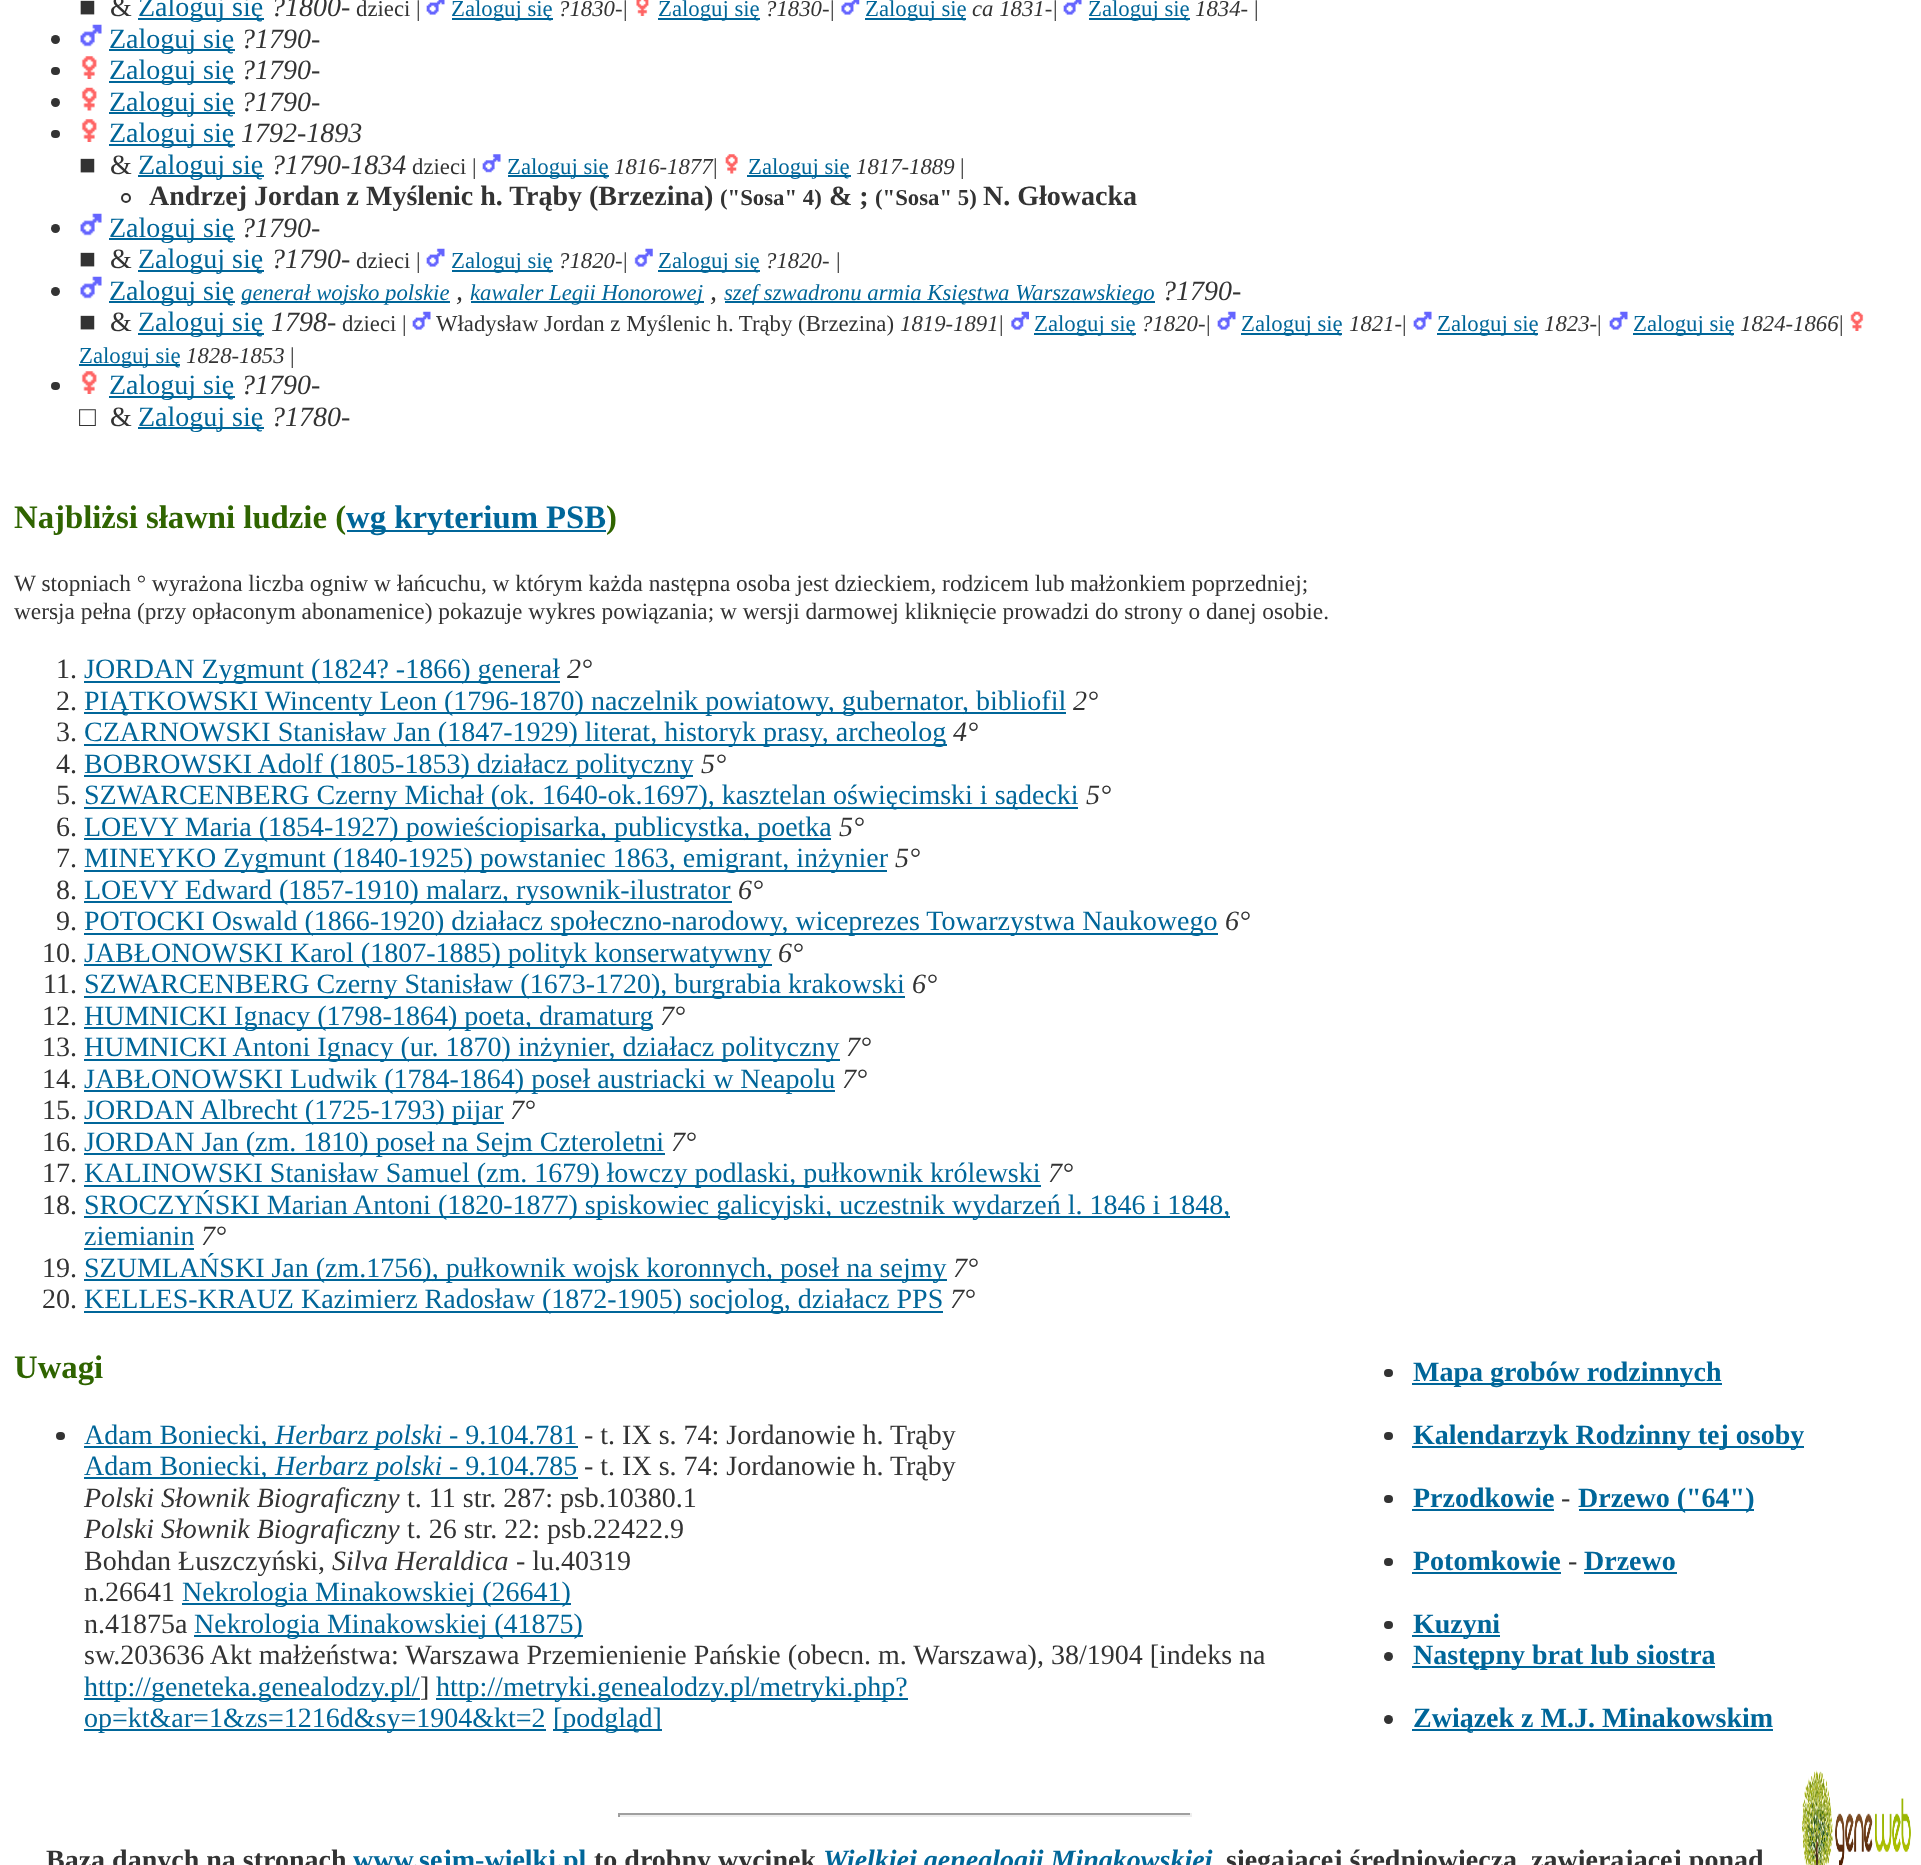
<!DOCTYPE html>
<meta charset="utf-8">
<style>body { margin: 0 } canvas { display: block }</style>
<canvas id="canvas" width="1921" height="1865"></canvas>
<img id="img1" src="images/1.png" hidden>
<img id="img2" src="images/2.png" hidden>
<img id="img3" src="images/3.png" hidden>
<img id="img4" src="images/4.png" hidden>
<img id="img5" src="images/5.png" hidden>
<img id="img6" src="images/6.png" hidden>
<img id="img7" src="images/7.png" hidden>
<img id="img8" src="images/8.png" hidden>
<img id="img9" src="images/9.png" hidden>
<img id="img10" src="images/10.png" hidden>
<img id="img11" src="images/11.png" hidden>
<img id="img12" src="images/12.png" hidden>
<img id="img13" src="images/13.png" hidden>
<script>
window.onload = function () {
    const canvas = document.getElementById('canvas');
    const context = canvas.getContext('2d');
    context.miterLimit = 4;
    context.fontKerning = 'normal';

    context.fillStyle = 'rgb(255, 255, 255)';
    context.fillRect(0, 0, 1921, 1865);
    context.fillStyle = 'rgb(0, 102, 153)';
    context.fillRect(138, 18, 126, 2);
    context.drawImage(document.getElementById('img1'), 426, 0, 19, 15);
    context.fillRect(452, 18, 101, 2);
    context.drawImage(document.getElementById('img2'), 636, 0, 13, 16);
    context.fillRect(658, 18, 102, 2);
    context.drawImage(document.getElementById('img3'), 841, 0, 19, 15);
    context.fillRect(865, 18, 101, 2);
    context.drawImage(document.getElementById('img1'), 1063, 0, 19, 15);
    context.fillRect(1089, 18, 101, 2);
    context.fillStyle = 'rgb(51, 51, 51)';
    context.beginPath();
    context.arc(55.5, 39.5, 4.5, 0, 2 * Math.PI);
    context.fill();
    context.drawImage(document.getElementById('img4'), 80, 24, 22, 23);
    context.fillStyle = 'rgb(0, 102, 153)';
    context.fillRect(109, 49, 126, 2);
    context.fillStyle = 'rgb(51, 51, 51)';
    context.beginPath();
    context.roundRect(51, 67, 9, 8, 4);
    context.fill();
    context.drawImage(document.getElementById('img5'), 81, 56, 16, 23);
    context.fillStyle = 'rgb(0, 102, 153)';
    context.fillRect(109, 81, 126, 2);
    context.fillStyle = 'rgb(51, 51, 51)';
    context.beginPath();
    context.arc(55.5, 102.5, 4.5, 0, 2 * Math.PI);
    context.fill();
    context.drawImage(document.getElementById('img6'), 81, 87, 16, 24);
    context.fillStyle = 'rgb(0, 102, 153)';
    context.fillRect(109, 112, 126, 2);
    context.fillStyle = 'rgb(51, 51, 51)';
    context.beginPath();
    context.roundRect(51, 130, 9, 8, 4);
    context.fill();
    context.drawImage(document.getElementById('img5'), 81, 119, 16, 23);
    context.fillStyle = 'rgb(0, 102, 153)';
    context.fillRect(109, 144, 126, 2);
    context.fillRect(138, 175, 126, 2);
    context.drawImage(document.getElementById('img7'), 482, 154, 19, 19);
    context.fillRect(508, 175, 101, 2);
    context.drawImage(document.getElementById('img8'), 725, 154, 13, 20);
    context.fillRect(747, 175, 104, 2);
    context.beginPath();
    context.arc(126, 198, 4, 0, 2 * Math.PI);
    context.strokeStyle = 'rgb(51, 51, 51)';
    context.lineWidth = 2;
    context.stroke();
    context.fillStyle = 'rgb(51, 51, 51)';
    context.beginPath();
    context.arc(55.5, 228.5, 4.5, 0, 2 * Math.PI);
    context.fill();
    context.drawImage(document.getElementById('img4'), 80, 213, 22, 23);
    context.fillStyle = 'rgb(0, 102, 153)';
    context.fillRect(109, 238, 126, 2);
    context.fillRect(138, 270, 126, 2);
    context.drawImage(document.getElementById('img9'), 426, 248, 19, 19);
    context.fillRect(452, 270, 101, 2);
    context.drawImage(document.getElementById('img10'), 634, 248, 19, 19);
    context.fillRect(658, 270, 102, 2);
    context.fillStyle = 'rgb(51, 51, 51)';
    context.beginPath();
    context.arc(55.5, 291.5, 4.5, 0, 2 * Math.PI);
    context.fill();
    context.drawImage(document.getElementById('img4'), 80, 276, 22, 23);
    context.fillStyle = 'rgb(0, 102, 153)';
    context.fillRect(109, 301, 126, 2);
    context.fillRect(242, 301, 208, 2);
    context.fillRect(471, 301, 233, 2);
    context.fillRect(725, 301, 430, 2);
    context.fillRect(138, 333, 126, 2);
    context.drawImage(document.getElementById('img9'), 412, 311, 19, 19);
    context.drawImage(document.getElementById('img11'), 1011, 311, 18, 19);
    context.fillRect(1034, 333, 102, 2);
    context.drawImage(document.getElementById('img9'), 1217, 311, 19, 19);
    context.fillRect(1241, 333, 101, 2);
    context.drawImage(document.getElementById('img9'), 1413, 311, 19, 19);
    context.fillRect(1437, 333, 101, 2);
    context.drawImage(document.getElementById('img9'), 1609, 311, 19, 19);
    context.fillRect(1633, 333, 101, 2);
    context.drawImage(document.getElementById('img12'), 1850, 311, 14, 20);
    context.fillRect(79, 364, 101, 2);
    context.fillStyle = 'rgb(51, 51, 51)';
    context.beginPath();
    context.roundRect(51, 382, 9, 8, 4);
    context.fill();
    context.drawImage(document.getElementById('img5'), 81, 371, 16, 23);
    context.fillStyle = 'rgb(0, 102, 153)';
    context.fillRect(109, 396, 126, 2);
    context.fillRect(138, 427, 126, 2);
    context.fillRect(347, 530, 259, 2);
    context.fillRect(84, 681, 476, 2);
    context.fillRect(84, 712, 982, 2);
    context.fillRect(84, 744, 863, 2);
    context.fillRect(84, 775, 609, 2);
    context.fillRect(84, 807, 994, 2);
    context.fillRect(84, 838, 747, 2);
    context.fillRect(84, 870, 803, 2);
    context.fillRect(84, 901, 648, 2);
    context.fillRect(84, 933, 1134, 2);
    context.fillRect(84, 964, 688, 2);
    context.fillRect(84, 996, 821, 2);
    context.fillRect(84, 1027, 569, 2);
    context.fillRect(84, 1059, 756, 2);
    context.fillRect(84, 1090, 751, 2);
    context.fillRect(84, 1122, 420, 2);
    context.fillRect(84, 1153, 581, 2);
    context.fillRect(84, 1185, 957, 2);
    context.fillRect(84, 1216, 1146, 2);
    context.fillRect(84, 1248, 110, 2);
    context.fillRect(84, 1279, 863, 2);
    context.fillRect(84, 1311, 859, 2);
    context.fillStyle = 'rgb(51, 51, 51)';
    context.beginPath();
    context.roundRect(56, 1432, 9, 8, 4);
    context.fill();
    context.fillStyle = 'rgb(0, 102, 153)';
    context.fillRect(84, 1446, 494, 2);
    context.fillRect(84, 1477, 494, 2);
    context.fillRect(182, 1603, 389, 2);
    context.fillRect(194, 1635, 389, 2);
    context.fillRect(84, 1698, 336, 2);
    context.fillRect(436, 1698, 472, 2);
    context.fillRect(84, 1729, 462, 2);
    context.fillRect(553, 1729, 109, 2);
    context.fillStyle = 'rgb(51, 51, 51)';
    context.beginPath();
    context.roundRect(1384, 1369, 9, 8, 4);
    context.fill();
    context.fillStyle = 'rgb(0, 102, 153)';
    context.fillRect(1412, 1383, 310, 2);
    context.fillStyle = 'rgb(51, 51, 51)';
    context.beginPath();
    context.roundRect(1384, 1432, 9, 8, 4);
    context.fill();
    context.fillStyle = 'rgb(0, 102, 153)';
    context.fillRect(1412, 1446, 392, 2);
    context.fillStyle = 'rgb(51, 51, 51)';
    context.beginPath();
    context.roundRect(1384, 1495, 9, 8, 4);
    context.fill();
    context.fillStyle = 'rgb(0, 102, 153)';
    context.fillRect(1412, 1509, 142, 2);
    context.fillRect(1579, 1509, 175, 2);
    context.fillStyle = 'rgb(51, 51, 51)';
    context.beginPath();
    context.roundRect(1384, 1558, 9, 8, 4);
    context.fill();
    context.fillStyle = 'rgb(0, 102, 153)';
    context.fillRect(1412, 1572, 149, 2);
    context.fillRect(1584, 1572, 93, 2);
    context.fillStyle = 'rgb(51, 51, 51)';
    context.beginPath();
    context.roundRect(1384, 1621, 9, 8, 4);
    context.fill();
    context.fillStyle = 'rgb(0, 102, 153)';
    context.fillRect(1412, 1635, 88, 2);
    context.fillStyle = 'rgb(51, 51, 51)';
    context.beginPath();
    context.arc(1388.5, 1656.5, 4.5, 0, 2 * Math.PI);
    context.fill();
    context.fillStyle = 'rgb(0, 102, 153)';
    context.fillRect(1412, 1666, 303, 2);
    context.fillStyle = 'rgb(51, 51, 51)';
    context.beginPath();
    context.arc(1388.5, 1719.5, 4.5, 0, 2 * Math.PI);
    context.fill();
    context.fillStyle = 'rgb(0, 102, 153)';
    context.fillRect(1412, 1729, 361, 2);
    context.fillStyle = 'rgb(159, 159, 159)';
    context.fillRect(618, 1813, 574, 2);
    context.fillStyle = 'rgb(238, 238, 238)';
    context.fillRect(1190, 1813, 2, 4);
    context.fillRect(618, 1815, 574, 2);
    context.fillStyle = 'rgb(159, 159, 159)';
    context.fillRect(618, 1813, 2, 4);
    context.drawImage(document.getElementById('img13'), 1802, 1770, 109, 95);
    context.font = '28px Liberation Serif';
    context.fillStyle = 'rgb(51, 51, 51)';
    context.fillText('■  &', 79, 16);
    context.fillStyle = 'rgb(0, 102, 153)';
    context.fillText('Zaloguj się', 138, 16);
    context.font = 'italic 28px Liberation Serif';
    context.fillStyle = 'rgb(51, 51, 51)';
    context.fillText('?1800-', 271, 16);
    context.font = '22.75px Liberation Serif';
    context.fillText('dzieci |', 356, 16);
    context.fillStyle = 'rgb(0, 102, 153)';
    context.fillText('Zaloguj się', 451, 16);
    context.font = 'italic 22.75px Liberation Serif';
    context.fillStyle = 'rgb(51, 51, 51)';
    context.fillText('?1830-', 558, 16);
    context.font = '22.75px Liberation Serif';
    context.fillText('|', 623, 16);
    context.fillStyle = 'rgb(0, 102, 153)';
    context.fillText('Zaloguj się', 658, 16);
    context.font = 'italic 22.75px Liberation Serif';
    context.fillStyle = 'rgb(51, 51, 51)';
    context.fillText('?1830-', 765, 16);
    context.font = '22.75px Liberation Serif';
    context.fillText('|', 830, 16);
    context.fillStyle = 'rgb(0, 102, 153)';
    context.fillText('Zaloguj się', 865, 16);
    context.font = 'italic 22.75px Liberation Serif';
    context.fillStyle = 'rgb(51, 51, 51)';
    context.fillText('ca 1831-', 972, 16);
    context.font = '22.75px Liberation Serif';
    context.fillText('|', 1053, 16);
    context.fillStyle = 'rgb(0, 102, 153)';
    context.fillText('Zaloguj się', 1088, 16);
    context.font = 'italic 22.75px Liberation Serif';
    context.fillStyle = 'rgb(51, 51, 51)';
    context.fillText('1834-', 1195, 16);
    context.font = '22.75px Liberation Serif';
    context.fillText('|', 1254, 16);
    context.font = '28px Liberation Serif';
    context.fillStyle = 'rgb(0, 102, 153)';
    context.fillText('Zaloguj się', 109, 48);
    context.font = 'italic 28px Liberation Serif';
    context.fillStyle = 'rgb(51, 51, 51)';
    context.fillText('?1790-', 241, 48);
    context.font = '28px Liberation Serif';
    context.fillStyle = 'rgb(0, 102, 153)';
    context.fillText('Zaloguj się', 109, 79);
    context.font = 'italic 28px Liberation Serif';
    context.fillStyle = 'rgb(51, 51, 51)';
    context.fillText('?1790-', 241, 79);
    context.font = '28px Liberation Serif';
    context.fillStyle = 'rgb(0, 102, 153)';
    context.fillText('Zaloguj się', 109, 111);
    context.font = 'italic 28px Liberation Serif';
    context.fillStyle = 'rgb(51, 51, 51)';
    context.fillText('?1790-', 241, 111);
    context.font = '28px Liberation Serif';
    context.fillStyle = 'rgb(0, 102, 153)';
    context.fillText('Zaloguj się', 109, 142);
    context.font = 'italic 28px Liberation Serif';
    context.fillStyle = 'rgb(51, 51, 51)';
    context.fillText('1792-1893', 241, 142);
    context.font = '28px Liberation Serif';
    context.fillText('■  &', 79, 174);
    context.fillStyle = 'rgb(0, 102, 153)';
    context.fillText('Zaloguj się', 138, 174);
    context.font = 'italic 28px Liberation Serif';
    context.fillStyle = 'rgb(51, 51, 51)';
    context.fillText('?1790-1834', 271, 174);
    context.font = '22.75px Liberation Serif';
    context.fillText('dzieci |', 412, 174);
    context.fillStyle = 'rgb(0, 102, 153)';
    context.fillText('Zaloguj się', 507, 174);
    context.font = 'italic 22.75px Liberation Serif';
    context.fillStyle = 'rgb(51, 51, 51)';
    context.fillText('1816-1877', 614, 174);
    context.font = '22.75px Liberation Serif';
    context.fillText('|', 713, 174);
    context.fillStyle = 'rgb(0, 102, 153)';
    context.fillText('Zaloguj się', 748, 174);
    context.font = 'italic 22.75px Liberation Serif';
    context.fillStyle = 'rgb(51, 51, 51)';
    context.fillText('1817-1889', 856, 174);
    context.font = '22.75px Liberation Serif';
    context.fillText('|', 960, 174);
    context.font = 'bold 28px Liberation Serif';
    context.fillText('Andrzej Jordan z Myślenic h. Trąby (Brzezina)', 149, 205);
    context.font = 'bold 22.75px Liberation Serif';
    context.fillText('("Sosa" 4)', 720, 205);
    context.font = 'bold 28px Liberation Serif';
    context.fillText('& ;', 829, 205);
    context.font = 'bold 22.75px Liberation Serif';
    context.fillText('("Sosa" 5)', 875, 205);
    context.font = 'bold 28px Liberation Serif';
    context.fillText('N. Głowacka', 983, 205);
    context.font = '28px Liberation Serif';
    context.fillStyle = 'rgb(0, 102, 153)';
    context.fillText('Zaloguj się', 109, 237);
    context.font = 'italic 28px Liberation Serif';
    context.fillStyle = 'rgb(51, 51, 51)';
    context.fillText('?1790-', 241, 237);
    context.font = '28px Liberation Serif';
    context.fillText('■  &', 79, 268);
    context.fillStyle = 'rgb(0, 102, 153)';
    context.fillText('Zaloguj się', 138, 268);
    context.font = 'italic 28px Liberation Serif';
    context.fillStyle = 'rgb(51, 51, 51)';
    context.fillText('?1790-', 271, 268);
    context.font = '22.75px Liberation Serif';
    context.fillText('dzieci |', 356, 268);
    context.fillStyle = 'rgb(0, 102, 153)';
    context.fillText('Zaloguj się', 451, 268);
    context.font = 'italic 22.75px Liberation Serif';
    context.fillStyle = 'rgb(51, 51, 51)';
    context.fillText('?1820-', 558, 268);
    context.font = '22.75px Liberation Serif';
    context.fillText('|', 623, 268);
    context.fillStyle = 'rgb(0, 102, 153)';
    context.fillText('Zaloguj się', 658, 268);
    context.font = 'italic 22.75px Liberation Serif';
    context.fillStyle = 'rgb(51, 51, 51)';
    context.fillText('?1820-', 765, 268);
    context.font = '22.75px Liberation Serif';
    context.fillText('|', 836, 268);
    context.font = '28px Liberation Serif';
    context.fillStyle = 'rgb(0, 102, 153)';
    context.fillText('Zaloguj się', 109, 300);
    context.font = 'italic 22.75px Liberation Serif';
    context.fillText('generał wojsko polskie', 241, 300);
    context.fillText('kawaler Legii Honorowej', 470, 300);
    context.fillText('szef szwadronu armia Księstwa Warszawskiego', 724, 300);
    context.font = 'italic 28px Liberation Serif';
    context.fillStyle = 'rgb(51, 51, 51)';
    context.fillText('?1790-', 1162, 300);
    context.fillText(',', 456, 300);
    context.fillText(',', 710, 300);
    context.font = '28px Liberation Serif';
    context.fillText('■  &', 79, 331);
    context.fillStyle = 'rgb(0, 102, 153)';
    context.fillText('Zaloguj się', 138, 331);
    context.font = 'italic 28px Liberation Serif';
    context.fillStyle = 'rgb(51, 51, 51)';
    context.fillText('1798-', 271, 331);
    context.font = '22.75px Liberation Serif';
    context.fillText('dzieci |', 342, 331);
    context.fillText('Władysław Jordan z Myślenic h. Trąby (Brzezina)', 436, 331);
    context.font = 'italic 22.75px Liberation Serif';
    context.fillText('1819-1891', 900, 331);
    context.font = '22.75px Liberation Serif';
    context.fillText('|', 999, 331);
    context.fillStyle = 'rgb(0, 102, 153)';
    context.fillText('Zaloguj się', 1034, 331);
    context.font = 'italic 22.75px Liberation Serif';
    context.fillStyle = 'rgb(51, 51, 51)';
    context.fillText('?1820-', 1141, 331);
    context.font = '22.75px Liberation Serif';
    context.fillText('|', 1206, 331);
    context.fillStyle = 'rgb(0, 102, 153)';
    context.fillText('Zaloguj się', 1241, 331);
    context.font = 'italic 22.75px Liberation Serif';
    context.fillStyle = 'rgb(51, 51, 51)';
    context.fillText('1821-', 1349, 331);
    context.font = '22.75px Liberation Serif';
    context.fillText('|', 1402, 331);
    context.fillStyle = 'rgb(0, 102, 153)';
    context.fillText('Zaloguj się', 1437, 331);
    context.font = 'italic 22.75px Liberation Serif';
    context.fillStyle = 'rgb(51, 51, 51)';
    context.fillText('1823-', 1544, 331);
    context.font = '22.75px Liberation Serif';
    context.fillText('|', 1597, 331);
    context.fillStyle = 'rgb(0, 102, 153)';
    context.fillText('Zaloguj się', 1633, 331);
    context.font = 'italic 22.75px Liberation Serif';
    context.fillStyle = 'rgb(51, 51, 51)';
    context.fillText('1824-1866', 1740, 331);
    context.font = '22.75px Liberation Serif';
    context.fillText('|', 1839, 331);
    context.fillStyle = 'rgb(0, 102, 153)';
    context.fillText('Zaloguj się', 79, 363);
    context.font = 'italic 22.75px Liberation Serif';
    context.fillStyle = 'rgb(51, 51, 51)';
    context.fillText('1828-1853', 186, 363);
    context.font = '22.75px Liberation Serif';
    context.fillText('|', 290, 363);
    context.font = '28px Liberation Serif';
    context.fillStyle = 'rgb(0, 102, 153)';
    context.fillText('Zaloguj się', 109, 394);
    context.font = 'italic 28px Liberation Serif';
    context.fillStyle = 'rgb(51, 51, 51)';
    context.fillText('?1790-', 241, 394);
    context.font = '28px Liberation Serif';
    context.fillText('□  &', 79, 426);
    context.fillStyle = 'rgb(0, 102, 153)';
    context.fillText('Zaloguj się', 138, 426);
    context.font = 'italic 28px Liberation Serif';
    context.fillStyle = 'rgb(51, 51, 51)';
    context.fillText('?1780-', 271, 426);
    context.font = 'bold 32.75px Liberation Serif';
    context.fillStyle = 'rgb(47, 100, 0)';
    context.fillText('Najbliżsi sławni ludzie (', 14, 528);
    context.fillStyle = 'rgb(0, 102, 153)';
    context.fillText('wg kryterium PSB', 346, 528);
    context.fillStyle = 'rgb(47, 100, 0)';
    context.fillText(')', 606, 528);
    context.font = '23.33px Liberation Serif';
    context.fillStyle = 'rgb(51, 51, 51)';
    context.fillText('W stopniach ° wyrażona liczba ogniw w łańcuchu, w którym każda następna osoba jest dzieckiem, rodzicem lub małżonkiem poprzedniej;', 14, 591);
    context.fillText('wersja pełna (przy opłaconym abonamenice) pokazuje wykres powiązania; w wersji darmowej kliknięcie prowadzi do strony o danej osobie.', 14, 619);
    context.font = '28px Liberation Serif';
    context.fillText('1.', 56, 678);
    context.fillStyle = 'rgb(0, 102, 153)';
    context.fillText('JORDAN Zygmunt (1824? -1866) generał', 84, 678);
    context.font = 'italic 28px Liberation Serif';
    context.fillStyle = 'rgb(51, 51, 51)';
    context.fillText('2°', 567, 678);
    context.font = '28px Liberation Serif';
    context.fillText('2.', 56, 710);
    context.fillStyle = 'rgb(0, 102, 153)';
    context.fillText('PIĄTKOWSKI Wincenty Leon (1796-1870) naczelnik powiatowy, gubernator, bibliofil', 84, 710);
    context.font = 'italic 28px Liberation Serif';
    context.fillStyle = 'rgb(51, 51, 51)';
    context.fillText('2°', 1073, 710);
    context.font = '28px Liberation Serif';
    context.fillText('3.', 56, 741);
    context.fillStyle = 'rgb(0, 102, 153)';
    context.fillText('CZARNOWSKI Stanisław Jan (1847-1929) literat, historyk prasy, archeolog', 84, 741);
    context.font = 'italic 28px Liberation Serif';
    context.fillStyle = 'rgb(51, 51, 51)';
    context.fillText('4°', 953, 741);
    context.font = '28px Liberation Serif';
    context.fillText('4.', 56, 773);
    context.fillStyle = 'rgb(0, 102, 153)';
    context.fillText('BOBROWSKI Adolf (1805-1853) działacz polityczny', 84, 773);
    context.font = 'italic 28px Liberation Serif';
    context.fillStyle = 'rgb(51, 51, 51)';
    context.fillText('5°', 701, 773);
    context.font = '28px Liberation Serif';
    context.fillText('5.', 56, 804);
    context.fillStyle = 'rgb(0, 102, 153)';
    context.fillText('SZWARCENBERG Czerny Michał (ok. 1640-ok.1697), kasztelan oświęcimski i sądecki', 84, 804);
    context.font = 'italic 28px Liberation Serif';
    context.fillStyle = 'rgb(51, 51, 51)';
    context.fillText('5°', 1086, 804);
    context.font = '28px Liberation Serif';
    context.fillText('6.', 56, 836);
    context.fillStyle = 'rgb(0, 102, 153)';
    context.fillText('LOEVY Maria (1854-1927) powieściopisarka, publicystka, poetka', 84, 836);
    context.font = 'italic 28px Liberation Serif';
    context.fillStyle = 'rgb(51, 51, 51)';
    context.fillText('5°', 839, 836);
    context.font = '28px Liberation Serif';
    context.fillText('7.', 56, 867);
    context.fillStyle = 'rgb(0, 102, 153)';
    context.fillText('MINEYKO Zygmunt (1840-1925) powstaniec 1863, emigrant, inżynier', 84, 867);
    context.font = 'italic 28px Liberation Serif';
    context.fillStyle = 'rgb(51, 51, 51)';
    context.fillText('5°', 895, 867);
    context.font = '28px Liberation Serif';
    context.fillText('8.', 56, 899);
    context.fillStyle = 'rgb(0, 102, 153)';
    context.fillText('LOEVY Edward (1857-1910) malarz, rysownik-ilustrator', 84, 899);
    context.font = 'italic 28px Liberation Serif';
    context.fillStyle = 'rgb(51, 51, 51)';
    context.fillText('6°', 738, 899);
    context.font = '28px Liberation Serif';
    context.fillText('9.', 56, 930);
    context.fillStyle = 'rgb(0, 102, 153)';
    context.fillText('POTOCKI Oswald (1866-1920) działacz społeczno-narodowy, wiceprezes Towarzystwa Naukowego', 84, 930);
    context.font = 'italic 28px Liberation Serif';
    context.fillStyle = 'rgb(51, 51, 51)';
    context.fillText('6°', 1225, 930);
    context.font = '28px Liberation Serif';
    context.fillText('10.', 42, 962);
    context.fillStyle = 'rgb(0, 102, 153)';
    context.fillText('JABŁONOWSKI Karol (1807-1885) polityk konserwatywny', 84, 962);
    context.font = 'italic 28px Liberation Serif';
    context.fillStyle = 'rgb(51, 51, 51)';
    context.fillText('6°', 778, 962);
    context.font = '28px Liberation Serif';
    context.fillText('11.', 43, 993);
    context.fillStyle = 'rgb(0, 102, 153)';
    context.fillText('SZWARCENBERG Czerny Stanisław (1673-1720), burgrabia krakowski', 84, 993);
    context.font = 'italic 28px Liberation Serif';
    context.fillStyle = 'rgb(51, 51, 51)';
    context.fillText('6°', 912, 993);
    context.font = '28px Liberation Serif';
    context.fillText('12.', 42, 1025);
    context.fillStyle = 'rgb(0, 102, 153)';
    context.fillText('HUMNICKI Ignacy (1798-1864) poeta, dramaturg', 84, 1025);
    context.font = 'italic 28px Liberation Serif';
    context.fillStyle = 'rgb(51, 51, 51)';
    context.fillText('7°', 660, 1025);
    context.font = '28px Liberation Serif';
    context.fillText('13.', 42, 1056);
    context.fillStyle = 'rgb(0, 102, 153)';
    context.fillText('HUMNICKI Antoni Ignacy (ur. 1870) inżynier, działacz polityczny', 84, 1056);
    context.font = 'italic 28px Liberation Serif';
    context.fillStyle = 'rgb(51, 51, 51)';
    context.fillText('7°', 846, 1056);
    context.font = '28px Liberation Serif';
    context.fillText('14.', 42, 1088);
    context.fillStyle = 'rgb(0, 102, 153)';
    context.fillText('JABŁONOWSKI Ludwik (1784-1864) poseł austriacki w Neapolu', 84, 1088);
    context.font = 'italic 28px Liberation Serif';
    context.fillStyle = 'rgb(51, 51, 51)';
    context.fillText('7°', 842, 1088);
    context.font = '28px Liberation Serif';
    context.fillText('15.', 42, 1119);
    context.fillStyle = 'rgb(0, 102, 153)';
    context.fillText('JORDAN Albrecht (1725-1793) pijar', 84, 1119);
    context.font = 'italic 28px Liberation Serif';
    context.fillStyle = 'rgb(51, 51, 51)';
    context.fillText('7°', 510, 1119);
    context.font = '28px Liberation Serif';
    context.fillText('16.', 42, 1151);
    context.fillStyle = 'rgb(0, 102, 153)';
    context.fillText('JORDAN Jan (zm. 1810) poseł na Sejm Czteroletni', 84, 1151);
    context.font = 'italic 28px Liberation Serif';
    context.fillStyle = 'rgb(51, 51, 51)';
    context.fillText('7°', 671, 1151);
    context.font = '28px Liberation Serif';
    context.fillText('17.', 42, 1182);
    context.fillStyle = 'rgb(0, 102, 153)';
    context.fillText('KALINOWSKI Stanisław Samuel (zm. 1679) łowczy podlaski, pułkownik królewski', 84, 1182);
    context.font = 'italic 28px Liberation Serif';
    context.fillStyle = 'rgb(51, 51, 51)';
    context.fillText('7°', 1048, 1182);
    context.font = '28px Liberation Serif';
    context.fillText('18.', 42, 1214);
    context.fillStyle = 'rgb(0, 102, 153)';
    context.fillText('SROCZYŃSKI Marian Antoni (1820-1877) spiskowiec galicyjski, uczestnik wydarzeń l. 1846 i 1848,', 84, 1214);
    context.fillText('ziemianin', 84, 1245);
    context.font = 'italic 28px Liberation Serif';
    context.fillStyle = 'rgb(51, 51, 51)';
    context.fillText('7°', 201, 1245);
    context.font = '28px Liberation Serif';
    context.fillText('19.', 42, 1277);
    context.fillStyle = 'rgb(0, 102, 153)';
    context.fillText('SZUMLAŃSKI Jan (zm.1756), pułkownik wojsk koronnych, poseł na sejmy', 84, 1277);
    context.font = 'italic 28px Liberation Serif';
    context.fillStyle = 'rgb(51, 51, 51)';
    context.fillText('7°', 953, 1277);
    context.font = '28px Liberation Serif';
    context.fillText('20.', 42, 1308);
    context.fillStyle = 'rgb(0, 102, 153)';
    context.fillText('KELLES-KRAUZ Kazimierz Radosław (1872-1905) socjolog, działacz PPS', 84, 1308);
    context.font = 'italic 28px Liberation Serif';
    context.fillStyle = 'rgb(51, 51, 51)';
    context.fillText('7°', 950, 1308);
    context.font = 'bold 32.75px Liberation Serif';
    context.fillStyle = 'rgb(47, 100, 0)';
    context.fillText('Uwagi', 14, 1378);
    context.font = '28px Liberation Serif';
    context.fillStyle = 'rgb(0, 102, 153)';
    context.fillText('Adam Boniecki,', 84, 1444);
    context.font = 'italic 28px Liberation Serif';
    context.fillText('Herbarz polski', 275, 1444);
    context.font = '28px Liberation Serif';
    context.fillText('- 9.104.781', 449, 1444);
    context.fillStyle = 'rgb(51, 51, 51)';
    context.fillText('- t. IX s. 74: Jordanowie h. Trąby', 584, 1444);
    context.fillStyle = 'rgb(0, 102, 153)';
    context.fillText('Adam Boniecki,', 84, 1475);
    context.font = 'italic 28px Liberation Serif';
    context.fillText('Herbarz polski', 275, 1475);
    context.font = '28px Liberation Serif';
    context.fillText('- 9.104.785', 449, 1475);
    context.fillStyle = 'rgb(51, 51, 51)';
    context.fillText('- t. IX s. 74: Jordanowie h. Trąby', 584, 1475);
    context.font = 'italic 28px Liberation Serif';
    context.fillText('Polski Słownik Biograficzny', 84, 1507);
    context.font = '28px Liberation Serif';
    context.fillText('t. 11 str. 287: psb.10380.1', 407, 1507);
    context.font = 'italic 28px Liberation Serif';
    context.fillText('Polski Słownik Biograficzny', 84, 1538);
    context.font = '28px Liberation Serif';
    context.fillText('t. 26 str. 22: psb.22422.9', 407, 1538);
    context.fillText('Bohdan Łuszczyński,', 84, 1570);
    context.font = 'italic 28px Liberation Serif';
    context.fillText('Silva Heraldica', 332, 1570);
    context.font = '28px Liberation Serif';
    context.fillText('- lu.40319', 516, 1570);
    context.fillText('n.26641', 84, 1601);
    context.fillStyle = 'rgb(0, 102, 153)';
    context.fillText('Nekrologia Minakowskiej (26641)', 182, 1601);
    context.fillStyle = 'rgb(51, 51, 51)';
    context.fillText('n.41875a', 84, 1633);
    context.fillStyle = 'rgb(0, 102, 153)';
    context.fillText('Nekrologia Minakowskiej (41875)', 194, 1633);
    context.fillStyle = 'rgb(51, 51, 51)';
    context.fillText('sw.203636 Akt małżeństwa: Warszawa Przemienienie Pańskie (obecn. m. Warszawa), 38/1904 [indeks na', 84, 1664);
    context.fillStyle = 'rgb(0, 102, 153)';
    context.fillText('http://geneteka.genealodzy.pl/', 84, 1696);
    context.fillStyle = 'rgb(51, 51, 51)';
    context.fillText(']', 420, 1696);
    context.fillStyle = 'rgb(0, 102, 153)';
    context.fillText('http://metryki.genealodzy.pl/metryki.php?', 436, 1696);
    context.fillText('op=kt&ar=1&zs=1216d&sy=1904&kt=2', 84, 1727);
    context.fillText('[podgląd]', 553, 1727);
    context.font = 'bold 28px Liberation Serif';
    context.fillText('Mapa grobów rodzinnych', 1413, 1381);
    context.fillText('Kalendarzyk Rodzinny tej osoby', 1413, 1444);
    context.fillText('Przodkowie', 1413, 1507);
    context.font = '28px Liberation Serif';
    context.fillStyle = 'rgb(51, 51, 51)';
    context.fillText('-', 1561, 1507);
    context.font = 'bold 28px Liberation Serif';
    context.fillStyle = 'rgb(0, 102, 153)';
    context.fillText('Drzewo ("64")', 1578, 1507);
    context.fillText('Potomkowie', 1413, 1570);
    context.font = '28px Liberation Serif';
    context.fillStyle = 'rgb(51, 51, 51)';
    context.fillText('-', 1568, 1570);
    context.font = 'bold 28px Liberation Serif';
    context.fillStyle = 'rgb(0, 102, 153)';
    context.fillText('Drzewo', 1584, 1570);
    context.fillText('Kuzyni', 1413, 1633);
    context.fillText('Następny brat lub siostra', 1413, 1664);
    context.fillText('Związek z M.J. Minakowskim', 1413, 1727);
    context.fillStyle = 'rgb(51, 51, 51)';
    context.fillText('Baza danych na stronach', 46, 1869);
    context.fillStyle = 'rgb(0, 102, 153)';
    context.fillText('www.sejm-wielki.pl', 353, 1869);
    context.fillStyle = 'rgb(51, 51, 51)';
    context.fillText('to drobny wycinek', 594, 1869);
    context.font = 'italic bold 28px Liberation Serif';
    context.fillStyle = 'rgb(0, 102, 153)';
    context.fillText('Wielkiej genealogii Minakowskiej', 823, 1869);
    context.font = 'bold 28px Liberation Serif';
    context.fillStyle = 'rgb(51, 51, 51)';
    context.fillText('sięgającej średniowiecza, zawierającej ponad', 1226, 1869);
};
</script>
